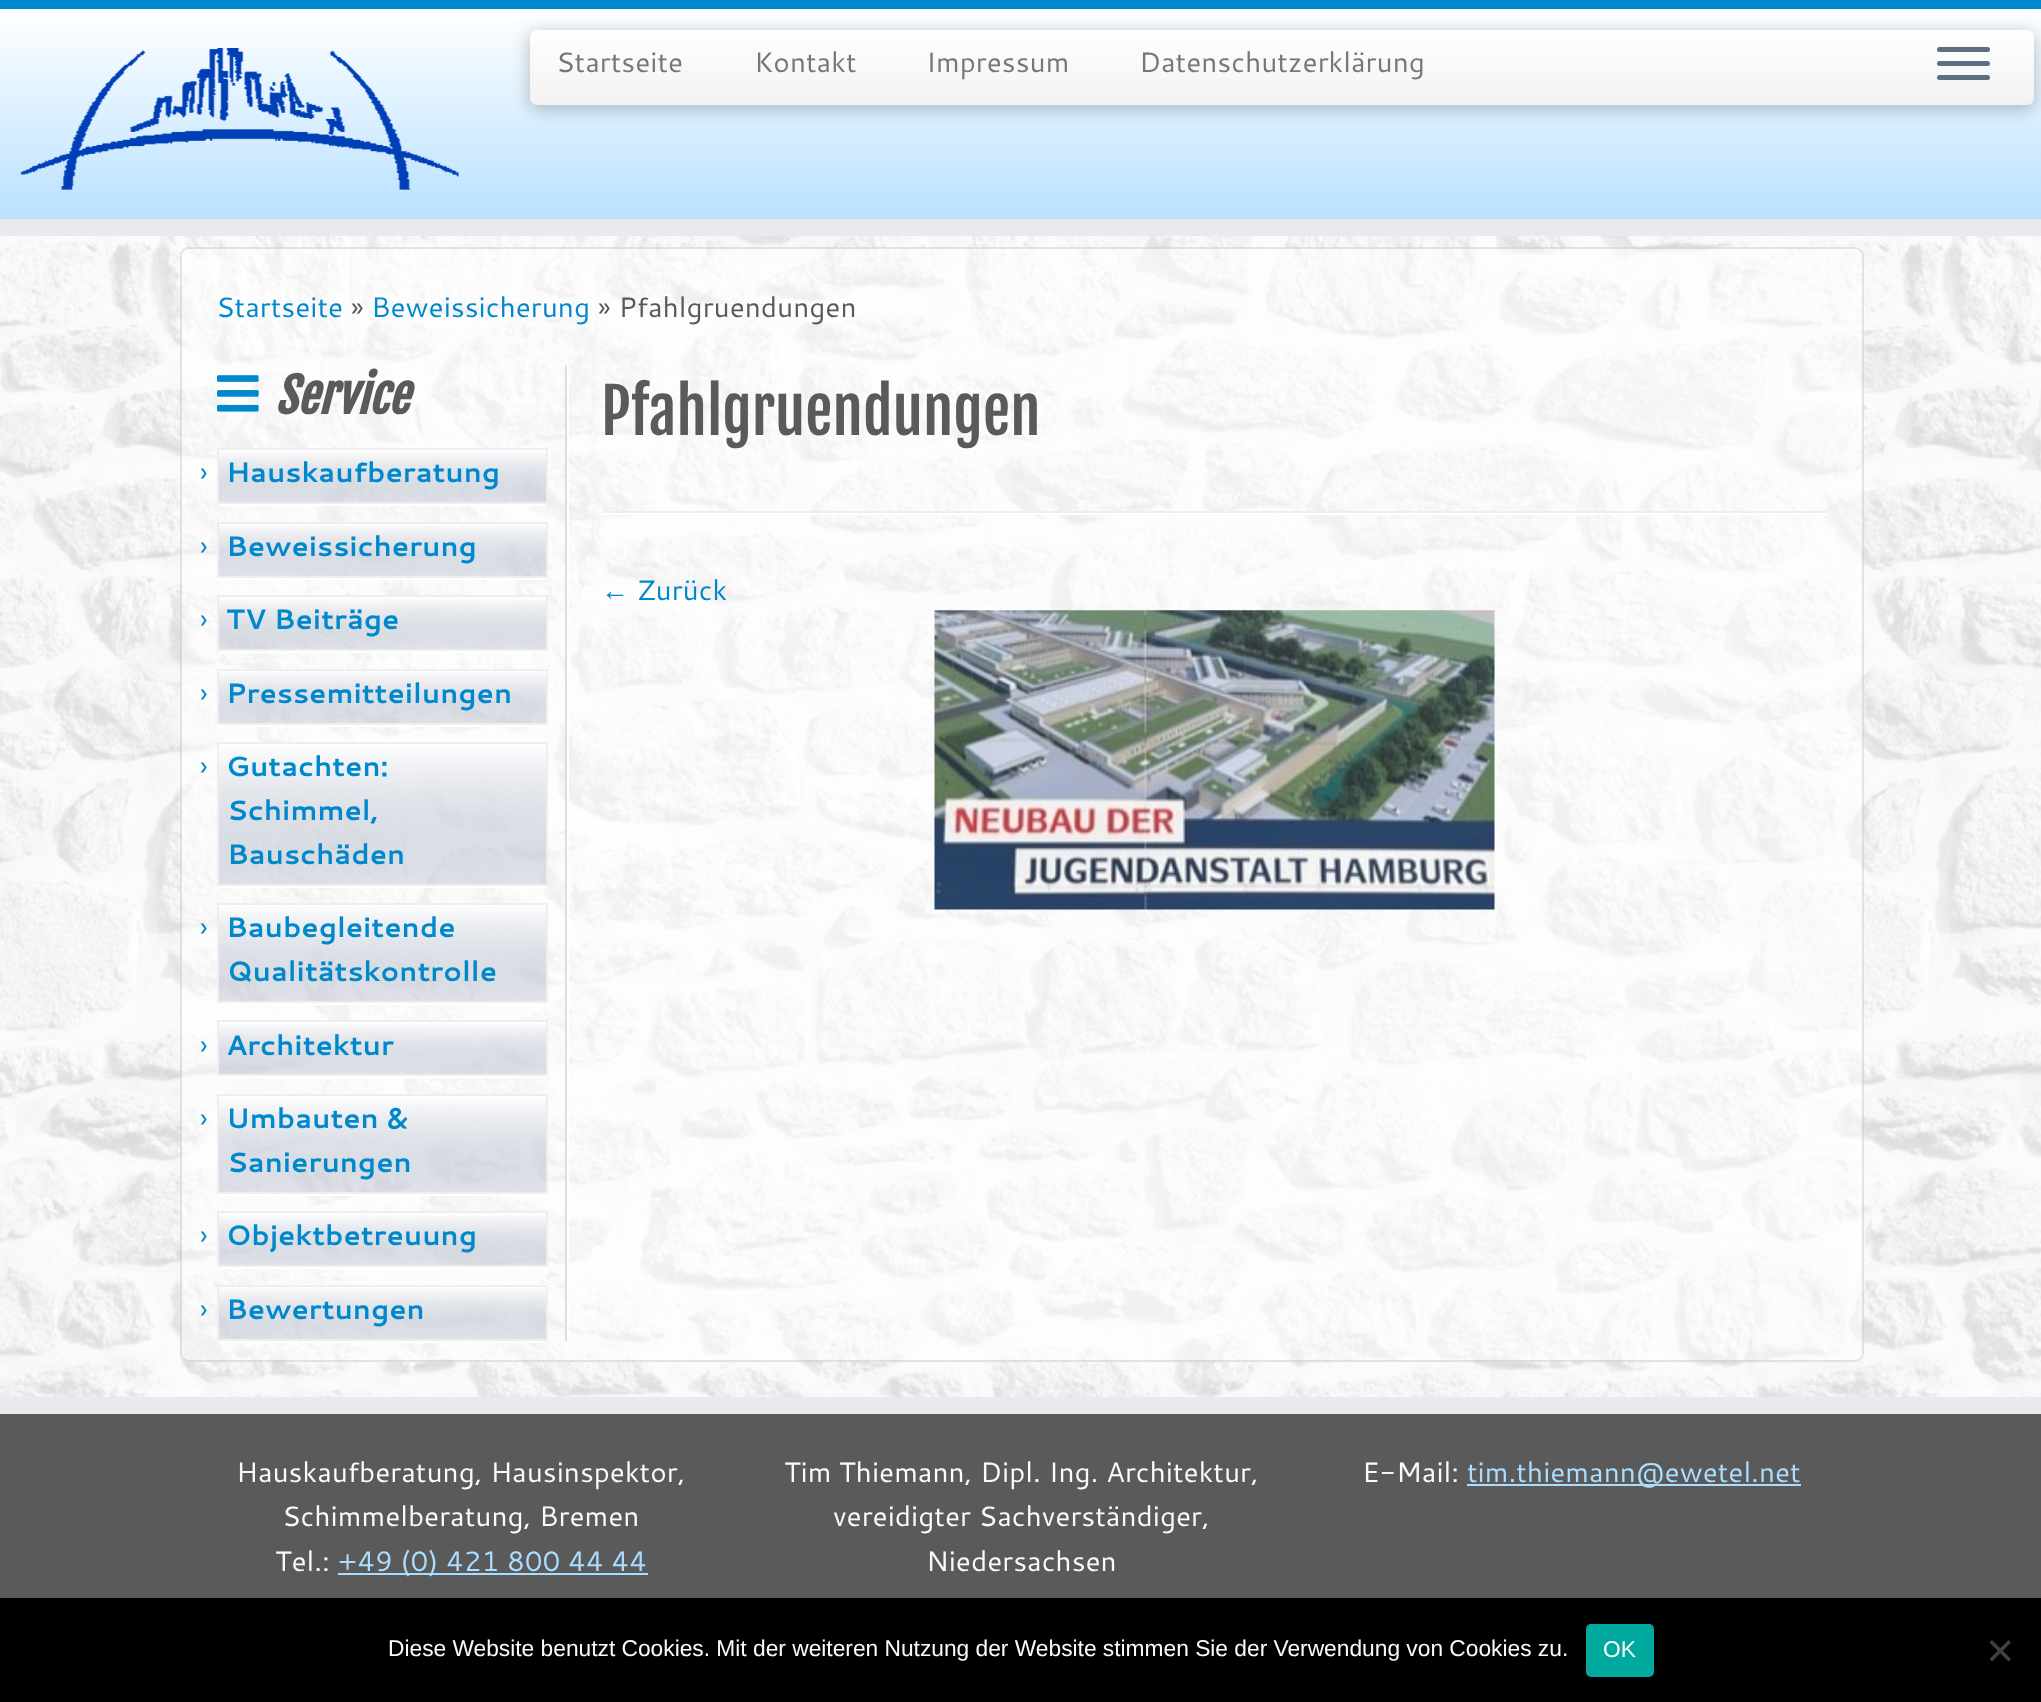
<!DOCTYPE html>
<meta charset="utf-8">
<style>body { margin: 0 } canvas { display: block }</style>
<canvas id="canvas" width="2041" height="1702"></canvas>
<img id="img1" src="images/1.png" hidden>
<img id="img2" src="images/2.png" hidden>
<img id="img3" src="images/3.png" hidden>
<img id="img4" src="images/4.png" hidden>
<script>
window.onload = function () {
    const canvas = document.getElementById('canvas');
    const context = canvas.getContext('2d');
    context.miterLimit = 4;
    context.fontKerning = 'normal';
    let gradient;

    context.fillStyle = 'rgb(255, 255, 255)';
    context.fillRect(0, 0, 2041, 1702);
    context.drawImage(document.getElementById('img1'), 0, 236, 2041, 1161);
    gradient = context.createLinearGradient(1021, 9, 1021, 219);
    gradient.addColorStop(0, 'rgb(255, 255, 255)');
    gradient.addColorStop(1, 'rgb(185, 225, 255)');
    context.fillStyle = gradient;
    context.fillRect(0, 17, 2041, 202);
    context.fillStyle = 'rgb(0, 136, 204)';
    context.fillRect(0, 0, 2041, 9);
    context.fillStyle = 'rgb(233, 234, 238)';
    context.fillRect(0, 219, 2041, 17);
    context.drawImage(document.getElementById('img2'), 20, 48, 439, 142);
    context.fillStyle = 'rgba(0, 0, 0, 0.25)';
    context.filter = 'blur(9px)';
    context.beginPath();
    context.roundRect(530, 33, 1504, 76, 7);
    context.fill();
    context.filter = 'none';
    gradient = context.createLinearGradient(1282, 30, 1282, 105);
    gradient.addColorStop(0, 'rgb(255, 255, 255)');
    gradient.addColorStop(1, 'rgb(242, 242, 242)');
    context.fillStyle = gradient;
    context.beginPath();
    context.roundRect(530, 30, 1504, 75, 7);
    context.fill();
    context.fillStyle = 'rgb(95, 111, 129)';
    context.beginPath();
    context.roundRect(1937, 47, 53, 5, 2.5);
    context.fill();
    context.beginPath();
    context.roundRect(1937, 61, 53, 5, 2.5);
    context.fill();
    context.beginPath();
    context.roundRect(1937, 75, 53, 5, 2.5);
    context.fill();
    context.fillStyle = 'rgba(255, 255, 255, 0.5)';
    context.beginPath();
    context.roundRect(180, 247, 1684, 1115, 9);
    context.fill();
    context.beginPath();
    context.roundRect(181, 248, 1682, 1113, 8);
    context.strokeStyle = 'rgba(0, 0, 0, 0.1)';
    context.lineWidth = 2;
    context.stroke();
    context.fillStyle = 'rgb(221, 221, 221)';
    context.fillRect(565, 366, 2, 975);
    context.drawImage(document.getElementById('img3'), 217, 375, 42, 37);
    gradient = context.createLinearGradient(382, 450, 382, 502);
    gradient.addColorStop(0, 'rgb(255, 255, 255)');
    gradient.addColorStop(1, 'rgba(155, 165, 185, 0.3)');
    context.fillStyle = gradient;
    context.fillRect(219, 450, 327, 52);
    context.strokeStyle = 'rgb(238, 238, 238)';
    context.strokeRect(218, 449, 329, 54);
    context.fillStyle = 'rgb(255, 255, 255)';
    context.fillRect(219, 504, 327, 2);
    gradient = context.createLinearGradient(382, 523, 382, 576);
    gradient.addColorStop(0, 'rgb(255, 255, 255)');
    gradient.addColorStop(1, 'rgba(155, 165, 185, 0.3)');
    context.fillStyle = gradient;
    context.fillRect(219, 524, 327, 52);
    context.strokeRect(218, 523, 329, 54);
    context.fillStyle = 'rgb(255, 255, 255)';
    context.fillRect(219, 578, 327, 2);
    gradient = context.createLinearGradient(382, 597, 382, 649);
    gradient.addColorStop(0, 'rgb(255, 255, 255)');
    gradient.addColorStop(1, 'rgba(155, 165, 185, 0.3)');
    context.fillStyle = gradient;
    context.fillRect(219, 597, 327, 52);
    context.strokeRect(218, 596, 329, 54);
    context.fillStyle = 'rgb(255, 255, 255)';
    context.fillRect(219, 651, 327, 2);
    gradient = context.createLinearGradient(382, 670, 382, 723);
    gradient.addColorStop(0, 'rgb(255, 255, 255)');
    gradient.addColorStop(1, 'rgba(155, 165, 185, 0.3)');
    context.fillStyle = gradient;
    context.fillRect(219, 671, 327, 52);
    context.strokeRect(218, 670, 329, 54);
    context.fillStyle = 'rgb(255, 255, 255)';
    context.fillRect(219, 725, 327, 2);
    gradient = context.createLinearGradient(382, 744, 382, 884);
    gradient.addColorStop(0, 'rgb(255, 255, 255)');
    gradient.addColorStop(1, 'rgba(155, 165, 185, 0.3)');
    context.fillStyle = gradient;
    context.fillRect(219, 744, 327, 140);
    context.strokeRect(218, 743, 329, 142);
    context.fillStyle = 'rgb(255, 255, 255)';
    context.fillRect(219, 886, 327, 2);
    gradient = context.createLinearGradient(382, 905, 382, 1001);
    gradient.addColorStop(0, 'rgb(255, 255, 255)');
    gradient.addColorStop(1, 'rgba(155, 165, 185, 0.3)');
    context.fillStyle = gradient;
    context.fillRect(219, 905, 327, 96);
    context.strokeRect(218, 904, 329, 98);
    context.fillStyle = 'rgb(255, 255, 255)';
    context.fillRect(228, 1003, 307, 2);
    gradient = context.createLinearGradient(382, 1022, 382, 1075);
    gradient.addColorStop(0, 'rgb(255, 255, 255)');
    gradient.addColorStop(1, 'rgba(155, 165, 185, 0.3)');
    context.fillStyle = gradient;
    context.fillRect(219, 1022, 327, 52);
    context.strokeRect(218, 1021, 329, 54);
    context.fillStyle = 'rgb(255, 255, 255)';
    context.fillRect(219, 1076, 327, 2);
    gradient = context.createLinearGradient(382, 1096, 382, 1192);
    gradient.addColorStop(0, 'rgb(255, 255, 255)');
    gradient.addColorStop(1, 'rgba(155, 165, 185, 0.3)');
    context.fillStyle = gradient;
    context.fillRect(219, 1096, 327, 96);
    context.strokeRect(218, 1095, 329, 98);
    context.fillStyle = 'rgb(255, 255, 255)';
    context.fillRect(219, 1194, 327, 2);
    gradient = context.createLinearGradient(382, 1213, 382, 1265);
    gradient.addColorStop(0, 'rgb(255, 255, 255)');
    gradient.addColorStop(1, 'rgba(155, 165, 185, 0.3)');
    context.fillStyle = gradient;
    context.fillRect(219, 1213, 327, 52);
    context.strokeRect(218, 1212, 329, 54);
    context.fillStyle = 'rgb(255, 255, 255)';
    context.fillRect(219, 1267, 327, 2);
    gradient = context.createLinearGradient(382, 1286, 382, 1339);
    gradient.addColorStop(0, 'rgb(255, 255, 255)');
    gradient.addColorStop(1, 'rgba(155, 165, 185, 0.3)');
    context.fillStyle = gradient;
    context.fillRect(219, 1287, 327, 52);
    context.strokeRect(218, 1286, 329, 54);
    context.fillStyle = 'rgb(255, 255, 255)';
    context.fillRect(219, 1341, 327, 2);
    context.fillRect(567, 366, 2, 975);
    context.fillStyle = 'rgb(238, 238, 238)';
    context.fillRect(602, 511, 1225, 2);
    context.fillStyle = 'rgb(255, 255, 255)';
    context.fillRect(602, 513, 1225, 2);
    context.drawImage(document.getElementById('img4'), 934, 610, 561, 300);
    context.fillStyle = 'rgb(90, 90, 90)';
    context.fillRect(0, 1414, 2041, 184);
    context.fillStyle = 'rgb(233, 234, 238)';
    context.fillRect(0, 1397, 2041, 17);
    context.fillStyle = 'rgb(170, 221, 255)';
    context.fillRect(338, 1573, 310, 2);
    context.fillRect(1467, 1484, 334, 2);
    context.fillStyle = 'rgb(0, 0, 0)';
    context.fillRect(0, 1598, 2041, 104);
    context.fillStyle = 'rgb(0, 169, 157)';
    context.beginPath();
    context.roundRect(1586, 1624, 68, 53, 5);
    context.fill();
    context.fillStyle = 'rgb(64, 64, 64)';
    context.beginPath();
    context.moveTo(2008.5, 1640);
    context.lineTo(2011, 1642.5);
    context.lineTo(1992, 1661.5);
    context.lineTo(1989.5, 1659);
    context.closePath();
    context.fill();
    context.beginPath();
    context.moveTo(1989.5, 1642.5);
    context.lineTo(1992, 1640);
    context.lineTo(2011, 1659);
    context.lineTo(2008.5, 1661.5);
    context.closePath();
    context.fill();
    context.font = '28px Cantarell';
    context.fillStyle = 'rgb(119, 119, 119)';
    context.fillText('Startseite', 556, 72);
    context.fillText('Kontakt', 754, 72);
    context.fillText('Impressum', 926, 72);
    context.fillText('Datenschutzerklärung', 1139, 72);
    context.fillStyle = 'rgb(0, 136, 204)';
    context.fillText('Startseite', 216, 317);
    context.fillStyle = 'rgb(90, 90, 90)';
    context.fillText('»', 351, 317);
    context.fillStyle = 'rgb(0, 136, 204)';
    context.fillText('Beweissicherung', 371, 317);
    context.fillStyle = 'rgb(90, 90, 90)';
    context.fillText('» Pfahlgruendungen', 598, 317);
    context.font = 'italic bold 47.5px Fjalla One';
    context.fillText('Service', 275, 414);
    context.font = '28px Cantarell';
    context.fillStyle = 'rgb(0, 136, 204)';
    context.fillText('›', 200, 482);
    context.font = 'bold 28px Cantarell';
    context.fillText('Hauskaufberatung', 226, 482);
    context.font = '28px Cantarell';
    context.fillText('›', 200, 556);
    context.font = 'bold 28px Cantarell';
    context.fillText('Beweissicherung', 226, 556);
    context.font = '28px Cantarell';
    context.fillText('›', 200, 629);
    context.font = 'bold 28px Cantarell';
    context.fillText('TV Beiträge', 226, 629);
    context.font = '28px Cantarell';
    context.fillText('›', 200, 703);
    context.font = 'bold 28px Cantarell';
    context.fillText('Pressemitteilungen', 226, 703);
    context.font = '28px Cantarell';
    context.fillText('›', 200, 776);
    context.font = 'bold 28px Cantarell';
    context.fillText('Gutachten:', 226, 776);
    context.fillText('Schimmel,', 227, 820);
    context.fillText('Bauschäden', 227, 864);
    context.font = '28px Cantarell';
    context.fillText('›', 200, 937);
    context.font = 'bold 28px Cantarell';
    context.fillText('Baubegleitende', 226, 937);
    context.fillText('Qualitätskontrolle', 227, 981);
    context.font = '28px Cantarell';
    context.fillText('›', 200, 1055);
    context.font = 'bold 28px Cantarell';
    context.fillText('Architektur', 226, 1055);
    context.font = '28px Cantarell';
    context.fillText('›', 200, 1128);
    context.font = 'bold 28px Cantarell';
    context.fillText('Umbauten &', 226, 1128);
    context.fillText('Sanierungen', 227, 1172);
    context.font = '28px Cantarell';
    context.fillText('›', 200, 1245);
    context.font = 'bold 28px Cantarell';
    context.fillText('Objektbetreuung', 226, 1245);
    context.font = '28px Cantarell';
    context.fillText('›', 200, 1319);
    context.font = 'bold 28px Cantarell';
    context.fillText('Bewertungen', 226, 1319);
    context.font = '61.5px Fjalla One';
    context.fillStyle = 'rgb(90, 90, 90)';
    context.fillText('Pfahlgruendungen', 601, 435);
    context.font = '28px Liberation Serif';
    context.fillStyle = 'rgb(0, 136, 204)';
    context.fillText('←', 601, 600);
    context.font = '28px Cantarell';
    context.fillText('Zurück', 637, 600);
    context.fillStyle = 'rgb(250, 250, 250)';
    context.fillText('Hauskaufberatung, Hausinspektor,', 236, 1482);
    context.fillText('Schimmelberatung, Bremen', 282, 1526);
    context.fillText('Tel.:', 275, 1571);
    context.fillStyle = 'rgb(170, 221, 255)';
    context.fillText('+49 (0) 421 800 44 44', 338, 1571);
    context.fillStyle = 'rgb(250, 250, 250)';
    context.fillText('Tim Thiemann, Dipl. Ing. Architektur,', 784, 1482);
    context.fillText('vereidigter Sachverständiger,', 833, 1526);
    context.fillText('Niedersachsen', 926, 1571);
    context.fillText('E-Mail:', 1362, 1482);
    context.fillStyle = 'rgb(170, 221, 255)';
    context.fillText('tim.thiemann@ewetel.net', 1467, 1482);
    context.font = '22.75px Liberation Sans';
    context.fillStyle = 'rgb(250, 250, 250)';
    context.fillText('Diese Website benutzt Cookies. Mit der weiteren Nutzung der Website stimmen Sie der Verwendung von Cookies zu.', 388, 1656);
    context.fillText('OK', 1603, 1657);
};
</script>
